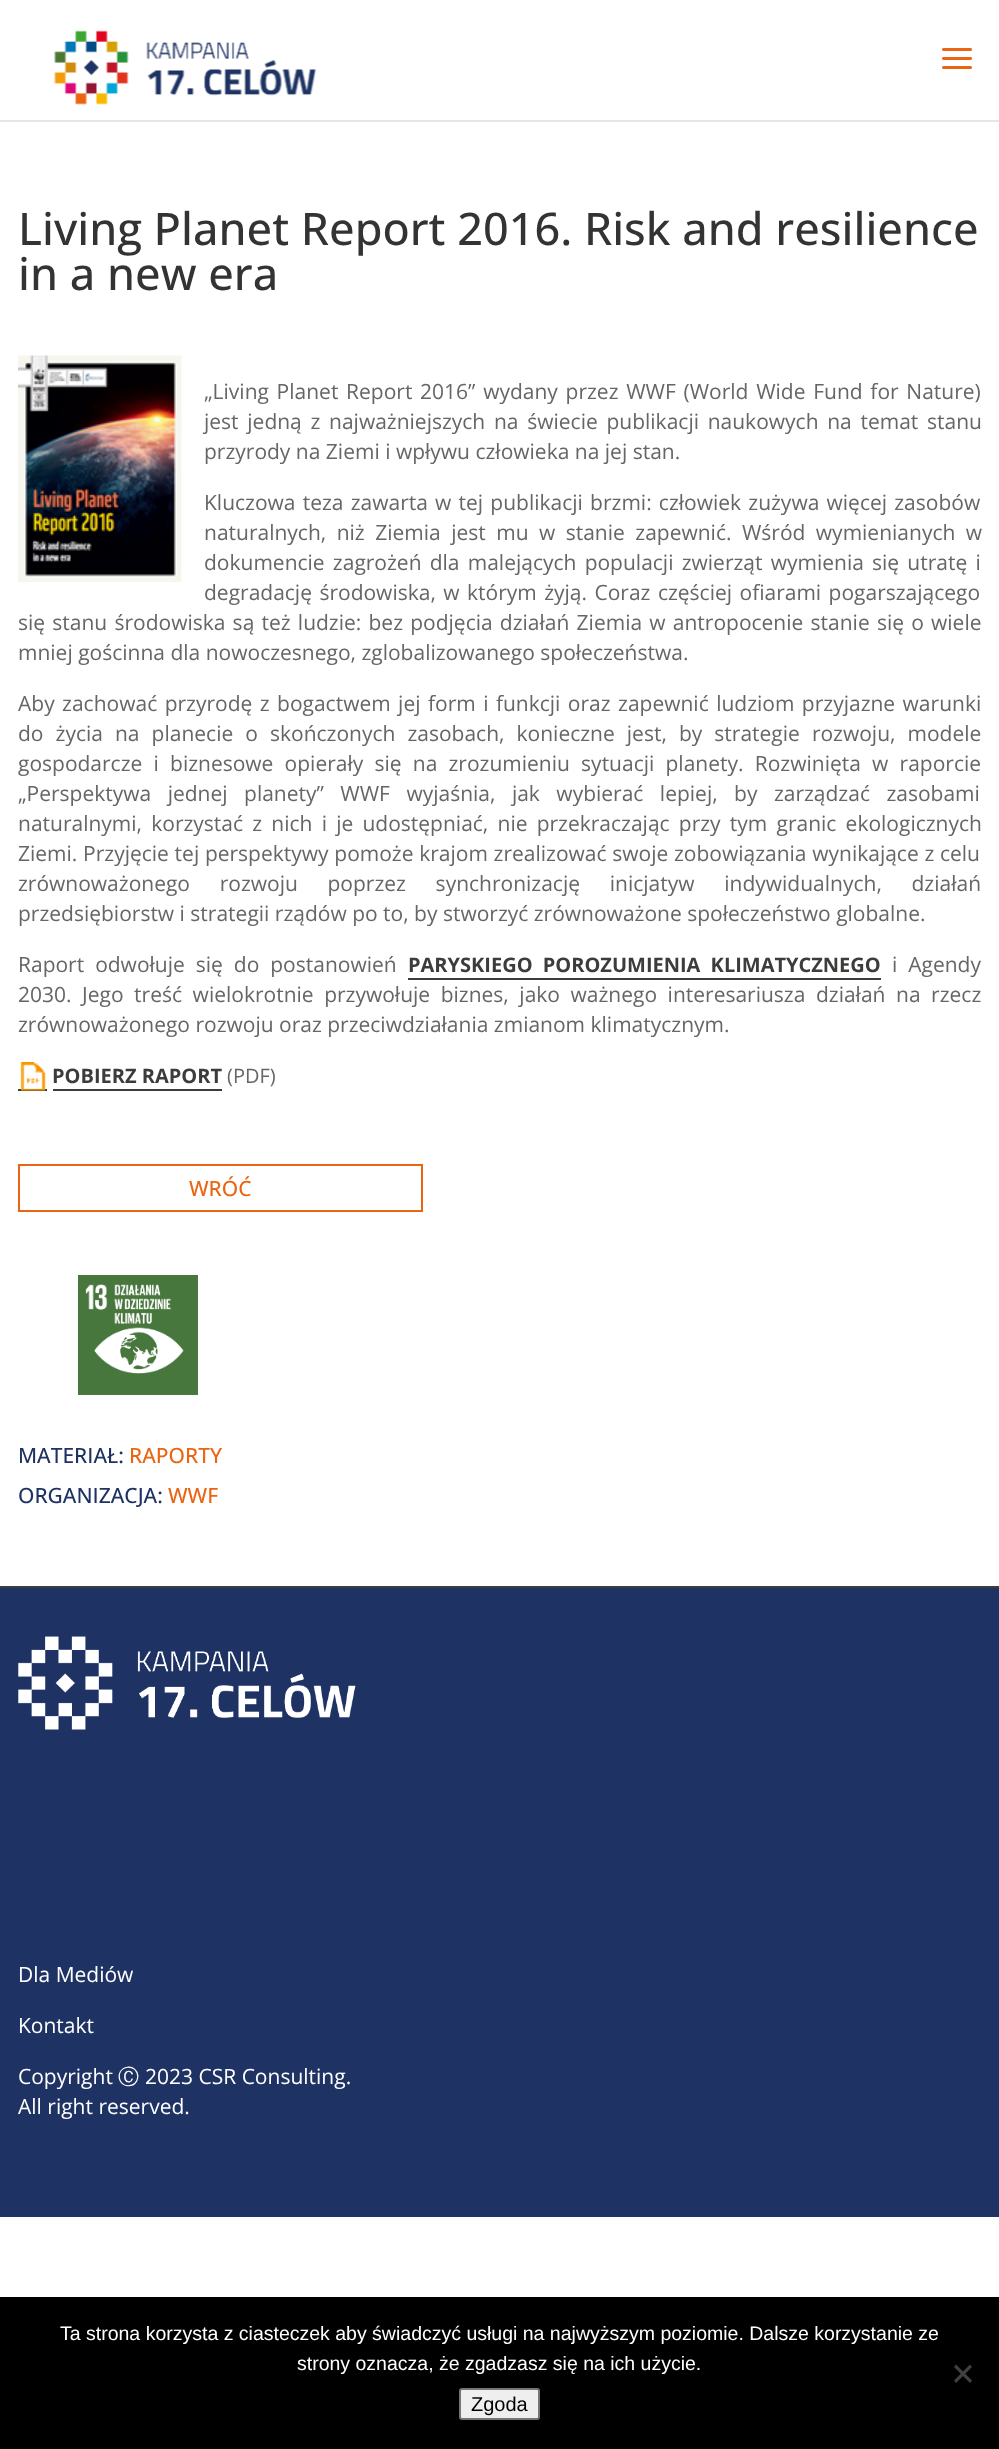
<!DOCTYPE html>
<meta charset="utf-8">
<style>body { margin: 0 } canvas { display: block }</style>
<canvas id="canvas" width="999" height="2449"></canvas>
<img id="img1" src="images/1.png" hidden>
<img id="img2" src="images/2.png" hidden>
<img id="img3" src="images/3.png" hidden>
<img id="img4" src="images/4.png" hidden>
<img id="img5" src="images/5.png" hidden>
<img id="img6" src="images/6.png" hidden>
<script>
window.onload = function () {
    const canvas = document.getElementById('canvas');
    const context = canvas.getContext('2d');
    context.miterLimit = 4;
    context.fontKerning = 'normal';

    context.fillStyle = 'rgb(255, 255, 255)';
    context.fillRect(0, 0, 999, 2449);
    context.fillStyle = 'rgb(230, 230, 230)';
    context.fillRect(0, 120, 999, 2);
    context.drawImage(document.getElementById('img1'), 54, 30, 263, 75);
    context.drawImage(document.getElementById('img2'), 942, 48, 30, 21);
    context.drawImage(document.getElementById('img3'), 18, 355, 164, 227);
    context.fillStyle = 'rgb(60, 60, 59)';
    context.fillRect(408, 978, 473, 2);
    context.fillRect(18, 1089, 29, 2);
    context.drawImage(document.getElementById('img4'), 20, 1062, 26, 29);
    context.fillRect(53, 1089, 169, 2);
    context.strokeStyle = 'rgb(235, 100, 17)';
    context.lineWidth = 2;
    context.strokeRect(19, 1165, 403, 46);
    context.drawImage(document.getElementById('img5'), 78, 1275, 120, 120);
    context.fillStyle = 'rgb(30, 50, 99)';
    context.fillRect(0, 1588, 999, 629);
    context.fillStyle = 'rgb(60, 60, 59)';
    context.fillRect(0, 1586, 999, 2);
    context.drawImage(document.getElementById('img6'), 18, 1636, 338, 94);
    context.fillStyle = 'rgb(0, 0, 0)';
    context.fillRect(0, 2297, 999, 152);
    context.fillStyle = 'rgb(64, 64, 64)';
    context.beginPath();
    context.moveTo(970, 2364.5);
    context.lineTo(972, 2367);
    context.lineTo(956, 2383);
    context.lineTo(954, 2380.5);
    context.closePath();
    context.fill();
    context.beginPath();
    context.moveTo(954, 2367);
    context.lineTo(956, 2364.5);
    context.lineTo(972, 2380.5);
    context.lineTo(970, 2383);
    context.closePath();
    context.fill();
    context.fillStyle = 'rgb(239, 239, 239)';
    context.beginPath();
    context.roundRect(460, 2389, 79, 30, 2);
    context.fill();
    context.strokeStyle = 'rgb(118, 118, 118)';
    context.stroke();
    context.font = '500 45px Open Sans';
    context.fillStyle = 'rgb(51, 51, 51)';
    context.fillText('Living Planet Report 2016. Risk and resilience', 18, 245);
    context.fillText('in a new era', 18, 290);
    context.wordSpacing = '2.25px';
    context.font = '21px Open Sans';
    context.fillStyle = 'rgb(102, 102, 102)';
    context.fillText('„Living Planet Report 2016” wydany przez WWF (World Wide Fund for Nature)', 204, 399);
    context.wordSpacing = '3.25px';
    context.fillText('jest jedną z najważniejszych na świecie publikacji naukowych na temat stanu', 204, 429);
    context.wordSpacing = '0px';
    context.fillText('przyrody na Ziemi i wpływu człowieka na jej stan.', 204, 459);
    context.wordSpacing = '1.75px';
    context.fillText('Kluczowa teza zawarta w tej publikacji brzmi: człowiek zużywa więcej zasobów', 204, 510);
    context.wordSpacing = '5px';
    context.fillText('naturalnych, niż Ziemia jest mu w stanie zapewnić. Wśród wymienianych w', 204, 540);
    context.wordSpacing = '2.75px';
    context.fillText('dokumencie zagrożeń dla malejących populacji zwierząt wymienia się utratę i', 204, 570);
    context.wordSpacing = '2px';
    context.fillText('degradację środowiska, w którym żyją. Coraz częściej ofiarami pogarszającego', 204, 600);
    context.wordSpacing = '1.75px';
    context.fillText('się stanu środowiska są też ludzie: bez podjęcia działań Ziemia w antropocenie stanie się o wiele', 18, 630);
    context.wordSpacing = '0px';
    context.fillText('mniej gościnna dla nowoczesnego, zglobalizowanego społeczeństwa.', 18, 660);
    context.wordSpacing = '2px';
    context.fillText('Aby zachować przyrodę z bogactwem jej form i funkcji oraz zapewnić ludziom przyjazne warunki', 18, 711);
    context.wordSpacing = '6.6px';
    context.fillText('do życia na planecie o skończonych zasobach, konieczne jest, by strategie rozwoju, modele', 18, 741);
    context.wordSpacing = '5.75px';
    context.fillText('gospodarcze i biznesowe opierały się na zrozumieniu sytuacji planety. Rozwinięta w raporcie', 18, 771);
    context.wordSpacing = '11px';
    context.fillText('„Perspektywa jednej planety” WWF wyjaśnia, jak wybierać lepiej, by zarządzać zasobami', 18, 801);
    context.wordSpacing = '3.75px';
    context.fillText('naturalnymi, korzystać z nich i je udostępniać, nie przekraczając przy tym granic ekologicznych', 18, 831);
    context.wordSpacing = '0.25px';
    context.fillText('Ziemi. Przyjęcie tej perspektywy pomoże krajom zrealizować swoje zobowiązania wynikające z celu', 18, 861);
    context.wordSpacing = '24.25px';
    context.fillText('zrównoważonego rozwoju poprzez synchronizację inicjatyw indywidualnych, działań', 18, 891);
    context.wordSpacing = '0px';
    context.fillText('przedsiębiorstw i strategii rządów po to, by stworzyć zrównoważone społeczeństwo globalne.', 18, 921);
    context.wordSpacing = '5.5px';
    context.fillText('Raport odwołuje się do postanowień', 18, 972);
    context.wordSpacing = '5px';
    context.font = 'bold 20px Open Sans';
    context.fillStyle = 'rgb(60, 60, 59)';
    context.fillText('PARYSKIEGO POROZUMIENIA KLIMATYCZNEGO', 408, 972);
    context.wordSpacing = '5.5px';
    context.font = '21px Open Sans';
    context.fillStyle = 'rgb(102, 102, 102)';
    context.fillText('i Agendy', 892, 972);
    context.wordSpacing = '5.1px';
    context.fillText('2030. Jego treść wielokrotnie przywołuje biznes, jako ważnego interesariusza działań na rzecz', 18, 1002);
    context.wordSpacing = '0px';
    context.fillText('zrównoważonego rozwoju oraz przeciwdziałania zmianom klimatycznym.', 18, 1032);
    context.font = 'bold 20px Open Sans';
    context.fillStyle = 'rgb(60, 60, 59)';
    context.fillText('POBIERZ RAPORT', 52, 1083);
    context.font = '20px Open Sans';
    context.fillStyle = 'rgb(102, 102, 102)';
    context.fillText('(PDF)', 227, 1083);
    context.font = '500 21px Open Sans';
    context.fillStyle = 'rgb(235, 100, 17)';
    context.fillText('WRÓĆ', 189, 1196);
    context.fillStyle = 'rgb(30, 50, 99)';
    context.fillText('MATERIAŁ:', 18, 1463);
    context.fillStyle = 'rgb(235, 100, 17)';
    context.fillText('RAPORTY', 129, 1463);
    context.fillStyle = 'rgb(30, 50, 99)';
    context.fillText('ORGANIZACJA:', 18, 1503);
    context.fillStyle = 'rgb(235, 100, 17)';
    context.fillText('WWF', 168, 1503);
    context.font = '21px Open Sans';
    context.fillStyle = 'rgb(255, 255, 255)';
    context.fillText('Dla Mediów', 18, 1982);
    context.fillText('Kontakt', 18, 2033);
    context.fillText('Copyright', 18, 2084);
    context.font = '500 21px WenQuanYi Zen Hei';
    context.fillText('Ⓒ', 118, 2084);
    context.font = '21px Open Sans';
    context.fillText('2023 CSR Consulting.', 145, 2084);
    context.fillText('All right reserved.', 18, 2114);
    context.font = '19.5px Liberation Sans';
    context.fillText('Ta strona korzysta z ciasteczek aby świadczyć usługi na najwyższym poziomie. Dalsze korzystanie ze', 60, 2340);
    context.fillText('strony oznacza, że zgadzasz się na ich użycie.', 297, 2370);
    context.font = '20px Liberation Sans';
    context.fillStyle = 'rgb(0, 0, 0)';
    context.fillText('Zgoda', 471, 2411);
};
</script>
